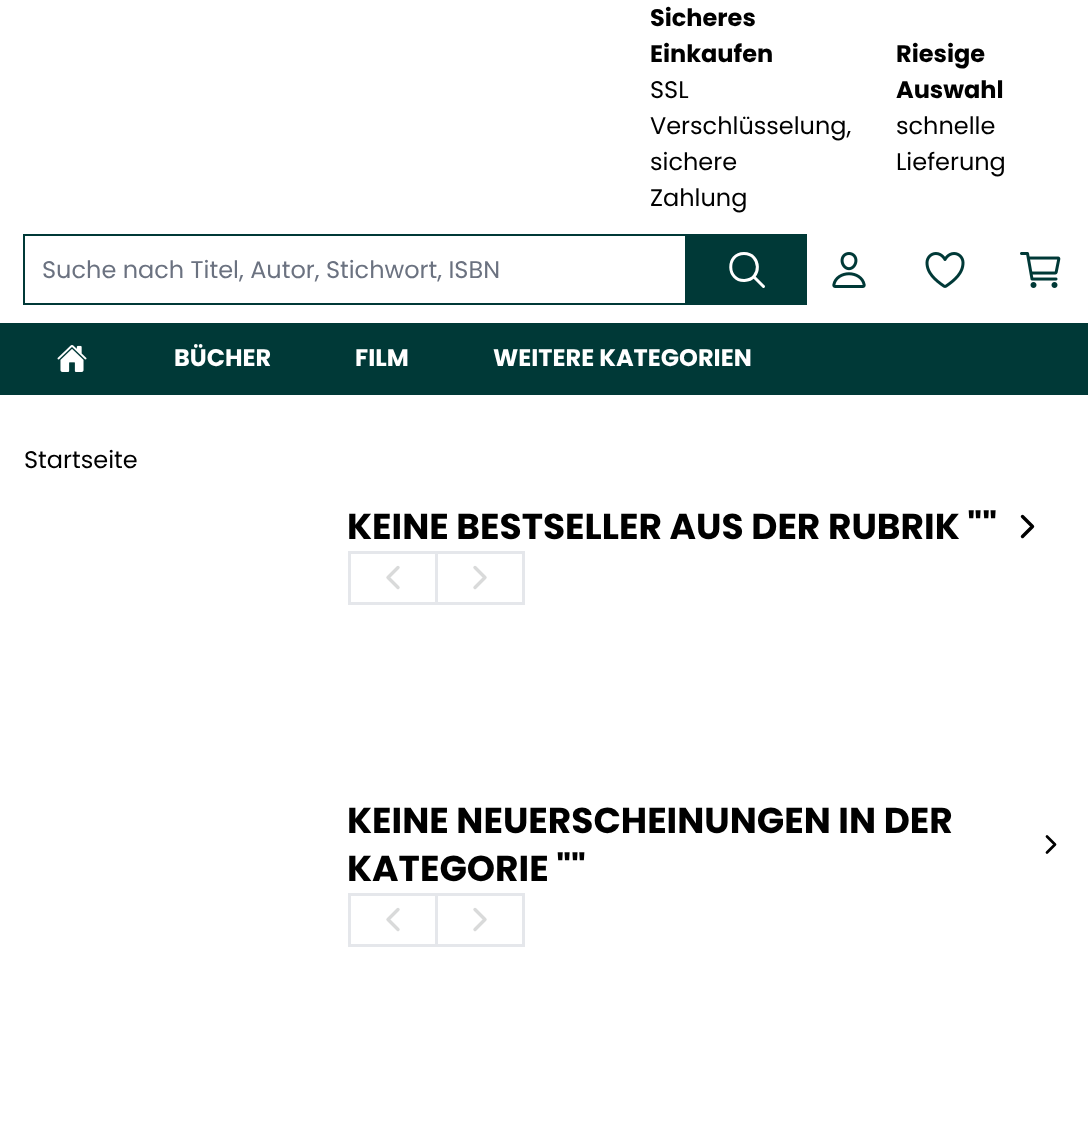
<!DOCTYPE html>
<meta charset="utf-8">
<style>body { margin: 0 } canvas { display: block }</style>
<canvas id="canvas" width="1088" height="1123"></canvas>
<img id="img1" src="images/1.png" hidden>
<img id="img2" src="images/2.png" hidden>
<img id="img3" src="images/3.png" hidden>
<img id="img4" src="images/4.png" hidden>
<script>
window.onload = function () {
    const canvas = document.getElementById('canvas');
    const context = canvas.getContext('2d');
    context.miterLimit = 4;
    context.fontKerning = 'normal';

    context.fillStyle = 'rgb(255, 255, 255)';
    context.fillRect(0, 0, 1088, 1123);
    context.strokeStyle = 'rgb(0, 57, 55)';
    context.lineWidth = 2;
    context.strokeRect(24, 235, 662, 69);
    context.fillStyle = 'rgb(0, 57, 55)';
    context.fillRect(687, 234, 120, 71);
    context.beginPath();
    context.moveTo(744, 253.5);
    context.bezierCurveTo(726, 253.5, 726.5, 281, 744.5, 280.5);
    context.bezierCurveTo(762, 280, 761.5, 253.5, 744, 253.5);
    context.closePath();
    context.strokeStyle = 'rgb(255, 255, 255)';
    context.lineWidth = 3;
    context.stroke();
    context.beginPath();
    context.moveTo(754, 277);
    context.lineTo(763.5, 286.5);
    context.lineCap = 'round';
    context.stroke();
    context.drawImage(document.getElementById('img1'), 832, 252, 34, 36);
    context.drawImage(document.getElementById('img2'), 925, 252, 40, 36);
    context.drawImage(document.getElementById('img3'), 1020, 252, 41, 36);
    context.fillRect(0, 323, 1088, 72);
    context.drawImage(document.getElementById('img4'), 57, 345, 30, 27);
    context.beginPath();
    context.moveTo(1022.5, 516.5);
    context.lineTo(1032.5, 526.5);
    context.lineTo(1022.5, 536.5);
    context.strokeStyle = 'rgb(0, 0, 0)';
    context.lineWidth = 3.4;
    context.lineJoin = 'round';
    context.stroke();
    context.strokeStyle = 'rgb(229, 231, 235)';
    context.lineWidth = 3;
    context.lineJoin = 'miter';
    context.strokeRect(349.5, 552.5, 174, 51);
    context.fillStyle = 'rgb(229, 231, 235)';
    context.fillRect(435, 554, 3, 48);
    context.beginPath();
    context.moveTo(398, 567.5);
    context.lineTo(388, 577.5);
    context.lineTo(398, 587.5);
    context.strokeStyle = 'rgb(217, 218, 218)';
    context.lineWidth = 3.4;
    context.lineJoin = 'round';
    context.stroke();
    context.beginPath();
    context.moveTo(475, 567.5);
    context.lineTo(485, 577.5);
    context.lineTo(475, 587.5);
    context.stroke();
    context.beginPath();
    context.moveTo(1047, 836.5);
    context.lineTo(1055, 844.5);
    context.lineTo(1047, 852.5);
    context.strokeStyle = 'rgb(0, 0, 0)';
    context.lineWidth = 2.7;
    context.stroke();
    context.strokeStyle = 'rgb(229, 231, 235)';
    context.lineWidth = 3;
    context.lineJoin = 'miter';
    context.strokeRect(349.5, 894.5, 174, 51);
    context.fillRect(435, 896, 3, 48);
    context.beginPath();
    context.moveTo(398, 909.5);
    context.lineTo(388, 919.5);
    context.lineTo(398, 929.5);
    context.strokeStyle = 'rgb(217, 218, 218)';
    context.lineWidth = 3.4;
    context.lineJoin = 'round';
    context.stroke();
    context.beginPath();
    context.moveTo(475, 909.5);
    context.lineTo(485, 919.5);
    context.lineTo(475, 929.5);
    context.stroke();
    context.font = 'bold 24px Poppins';
    context.fillStyle = 'rgb(0, 0, 0)';
    context.fillText('Sicheres', 650, 26);
    context.fillText('Einkaufen', 650, 62);
    context.font = '24px Poppins';
    context.fillText('SSL', 650, 98);
    context.fillText('Verschlüsselung,', 650, 134);
    context.fillText('sichere', 650, 170);
    context.fillText('Zahlung', 650, 206);
    context.font = 'bold 24px Poppins';
    context.fillText('Riesige', 896, 62);
    context.fillText('Auswahl', 896, 98);
    context.font = '24px Poppins';
    context.fillText('schnelle', 896, 134);
    context.fillText('Lieferung', 896, 170);
    context.fillStyle = 'rgb(107, 114, 128)';
    context.fillText('Suche nach Titel, Autor, Stichwort, ISBN', 42, 278);
    context.font = 'bold 24px Poppins';
    context.fillStyle = 'rgb(255, 255, 255)';
    context.fillText('BÜCHER', 174, 366);
    context.fillText('FILM', 355, 366);
    context.fillText('WEITERE KATEGORIEN', 493, 366);
    context.font = '24px Poppins';
    context.fillStyle = 'rgb(0, 0, 0)';
    context.fillText('Startseite', 24, 468);
    context.font = 'bold 36px Poppins';
    context.fillText('KEINE BESTSELLER AUS DER RUBRIK ""', 347, 539);
    context.fillText('KEINE NEUERSCHEINUNGEN IN DER', 347, 833);
    context.fillText('KATEGORIE ""', 347, 881);
};
</script>
